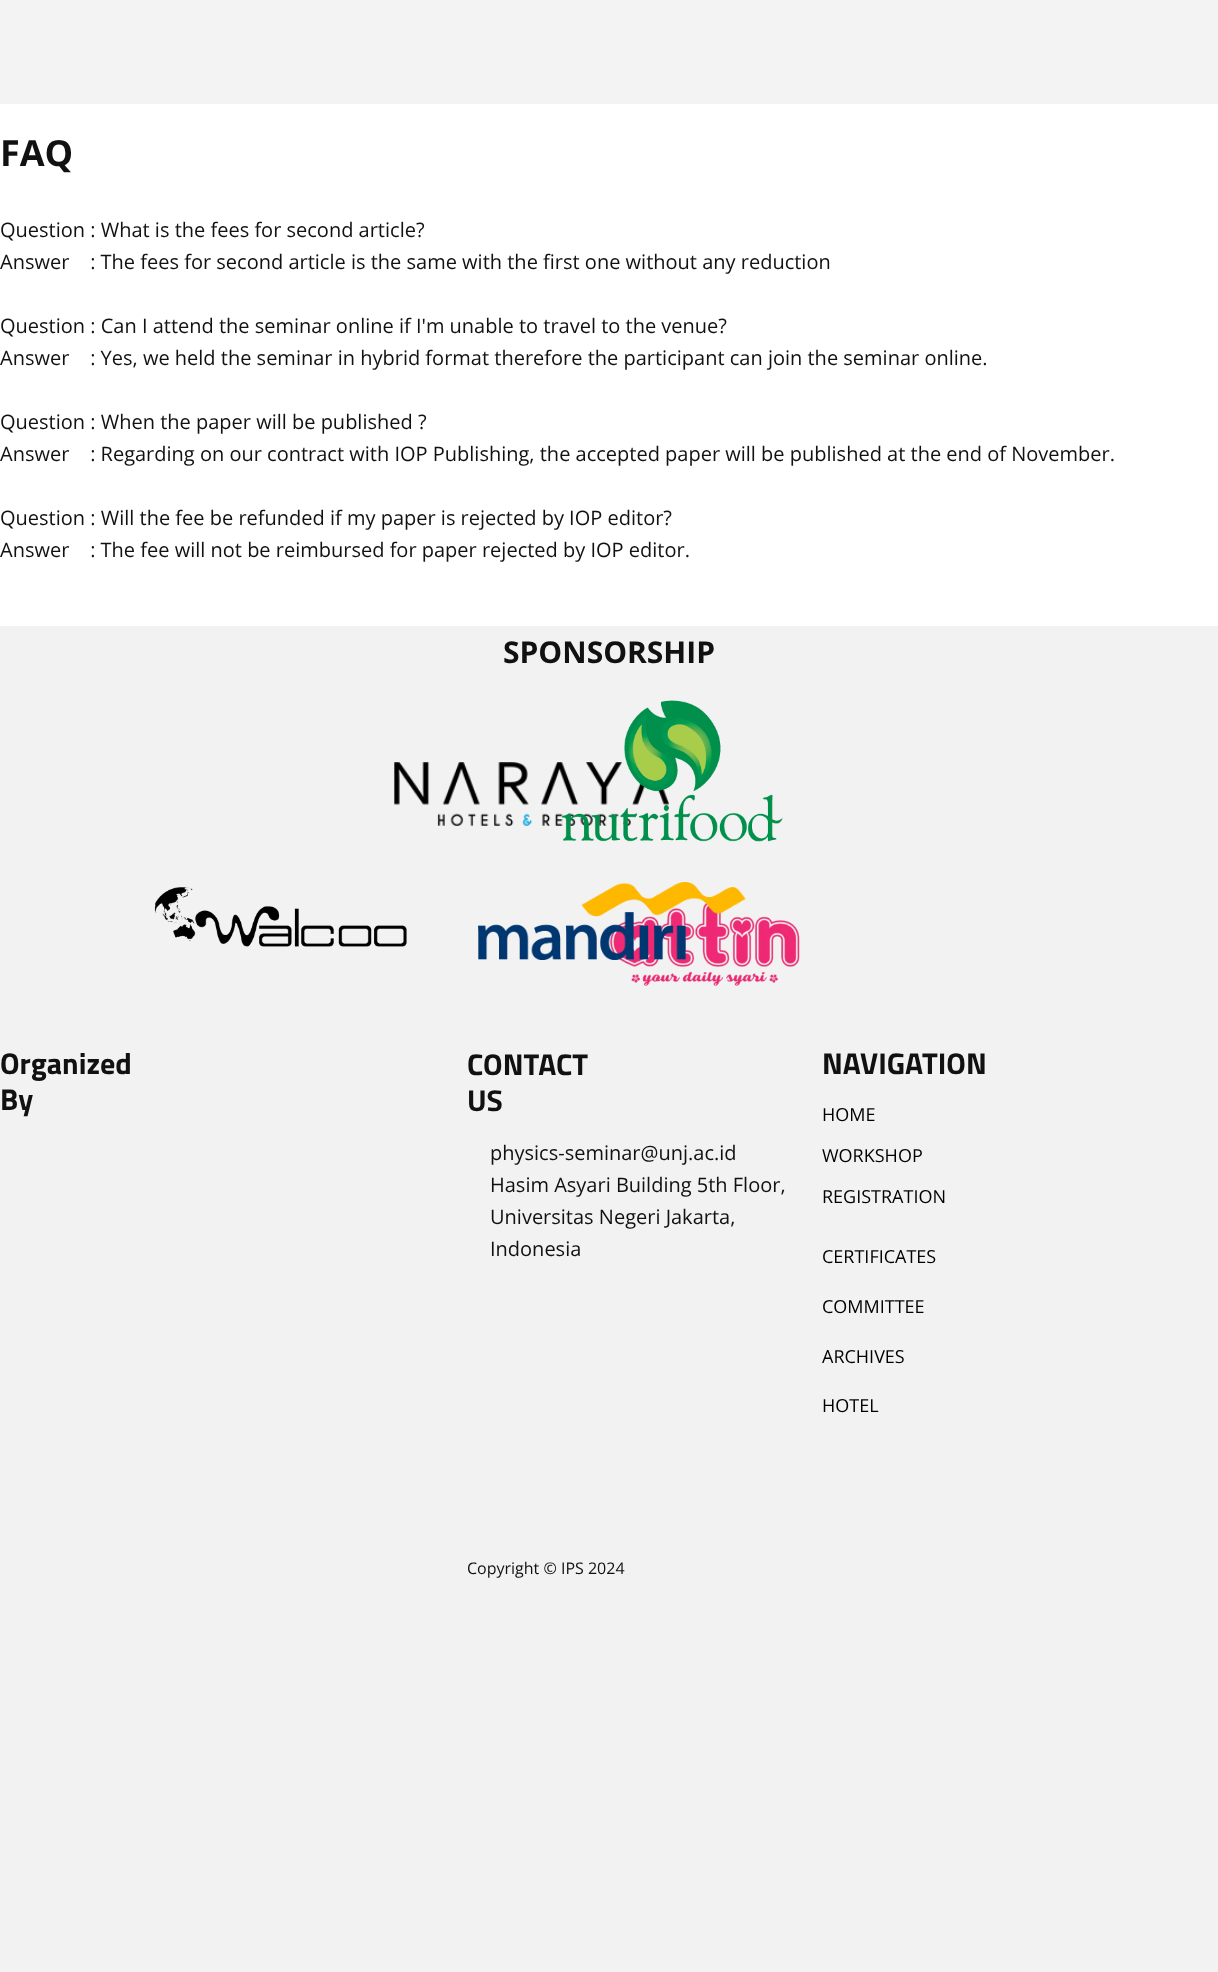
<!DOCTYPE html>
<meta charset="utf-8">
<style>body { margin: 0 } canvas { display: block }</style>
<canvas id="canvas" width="1218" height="1972"></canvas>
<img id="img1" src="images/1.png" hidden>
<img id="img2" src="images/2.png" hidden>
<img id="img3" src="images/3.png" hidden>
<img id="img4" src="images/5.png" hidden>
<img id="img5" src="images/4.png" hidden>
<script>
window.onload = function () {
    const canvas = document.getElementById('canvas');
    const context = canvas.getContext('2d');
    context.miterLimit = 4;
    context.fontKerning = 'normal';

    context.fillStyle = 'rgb(255, 255, 255)';
    context.fillRect(0, 0, 1218, 1972);
    context.fillStyle = 'rgb(243, 243, 243)';
    context.fillRect(0, 0, 1218, 104);
    context.fillStyle = 'rgb(242, 242, 242)';
    context.fillRect(0, 626, 1218, 1346);
    context.drawImage(document.getElementById('img1'), 394, 762, 275, 64);
    context.drawImage(document.getElementById('img2'), 561, 700, 222, 142);
    context.drawImage(document.getElementById('img3'), 154, 887, 253, 60);
    context.drawImage(document.getElementById('img4'), 610, 902, 190, 84);
    context.drawImage(document.getElementById('img5'), 478, 882, 268, 78);
    context.font = 'bold 36px Open Sans';
    context.fillStyle = 'rgb(17, 17, 17)';
    context.fillText('FAQ', 0, 166);
    context.font = '20px Open Sans';
    context.fillText('Question : What is the fees for second article?', 0, 237);
    context.fillText('Answer    : The fees for second article is the same with the first one without any reduction', 0, 269);
    context.fillText('Question : Can I attend the seminar online if I\'m unable to travel to the venue?', 0, 333);
    context.fillText('Answer    : Yes, we held the seminar in hybrid format therefore the participant can join the seminar online.', 0, 365);
    context.fillText('Question : When the paper will be published ?', 0, 429);
    context.fillText('Answer    : Regarding on our contract with IOP Publishing, the accepted paper will be published at the end of November.', 0, 461);
    context.fillText('Question : Will the fee be refunded if my paper is rejected by IOP editor?', 0, 525);
    context.fillText('Answer    : The fee will not be reimbursed for paper rejected by IOP editor.', 0, 557);
    context.font = 'bold 30px Open Sans';
    context.fillText('SPONSORSHIP', 503, 663);
    context.font = 'bold 30px Titillium Web';
    context.fillText('Organized', 0, 1074);
    context.fillText('By', 0, 1110);
    context.fillText('CONTACT', 467, 1075);
    context.fillText('US', 467, 1111);
    context.font = '20px Open Sans';
    context.fillText('physics-seminar@unj.ac.id', 490, 1160);
    context.fillText('Hasim Asyari Building 5th Floor,', 490, 1192);
    context.fillText('Universitas Negeri Jakarta,', 490, 1224);
    context.fillText('Indonesia', 490, 1256);
    context.font = '16px Open Sans';
    context.fillText('Copyright © IPS 2024', 467, 1574);
    context.font = 'bold 30px Titillium Web';
    context.fillText('NAVIGATION', 822, 1074);
    context.font = '18px Open Sans';
    context.fillStyle = 'rgb(0, 0, 0)';
    context.fillText('HOME', 822, 1121);
    context.fillText('WORKSHOP', 822, 1162);
    context.fillText('REGISTRATION', 822, 1203);
    context.fillText('CERTIFICATES', 822, 1263);
    context.fillText('COMMITTEE', 822, 1313);
    context.fillText('ARCHIVES', 822, 1363);
    context.fillText('HOTEL', 822, 1412);
};
</script>
